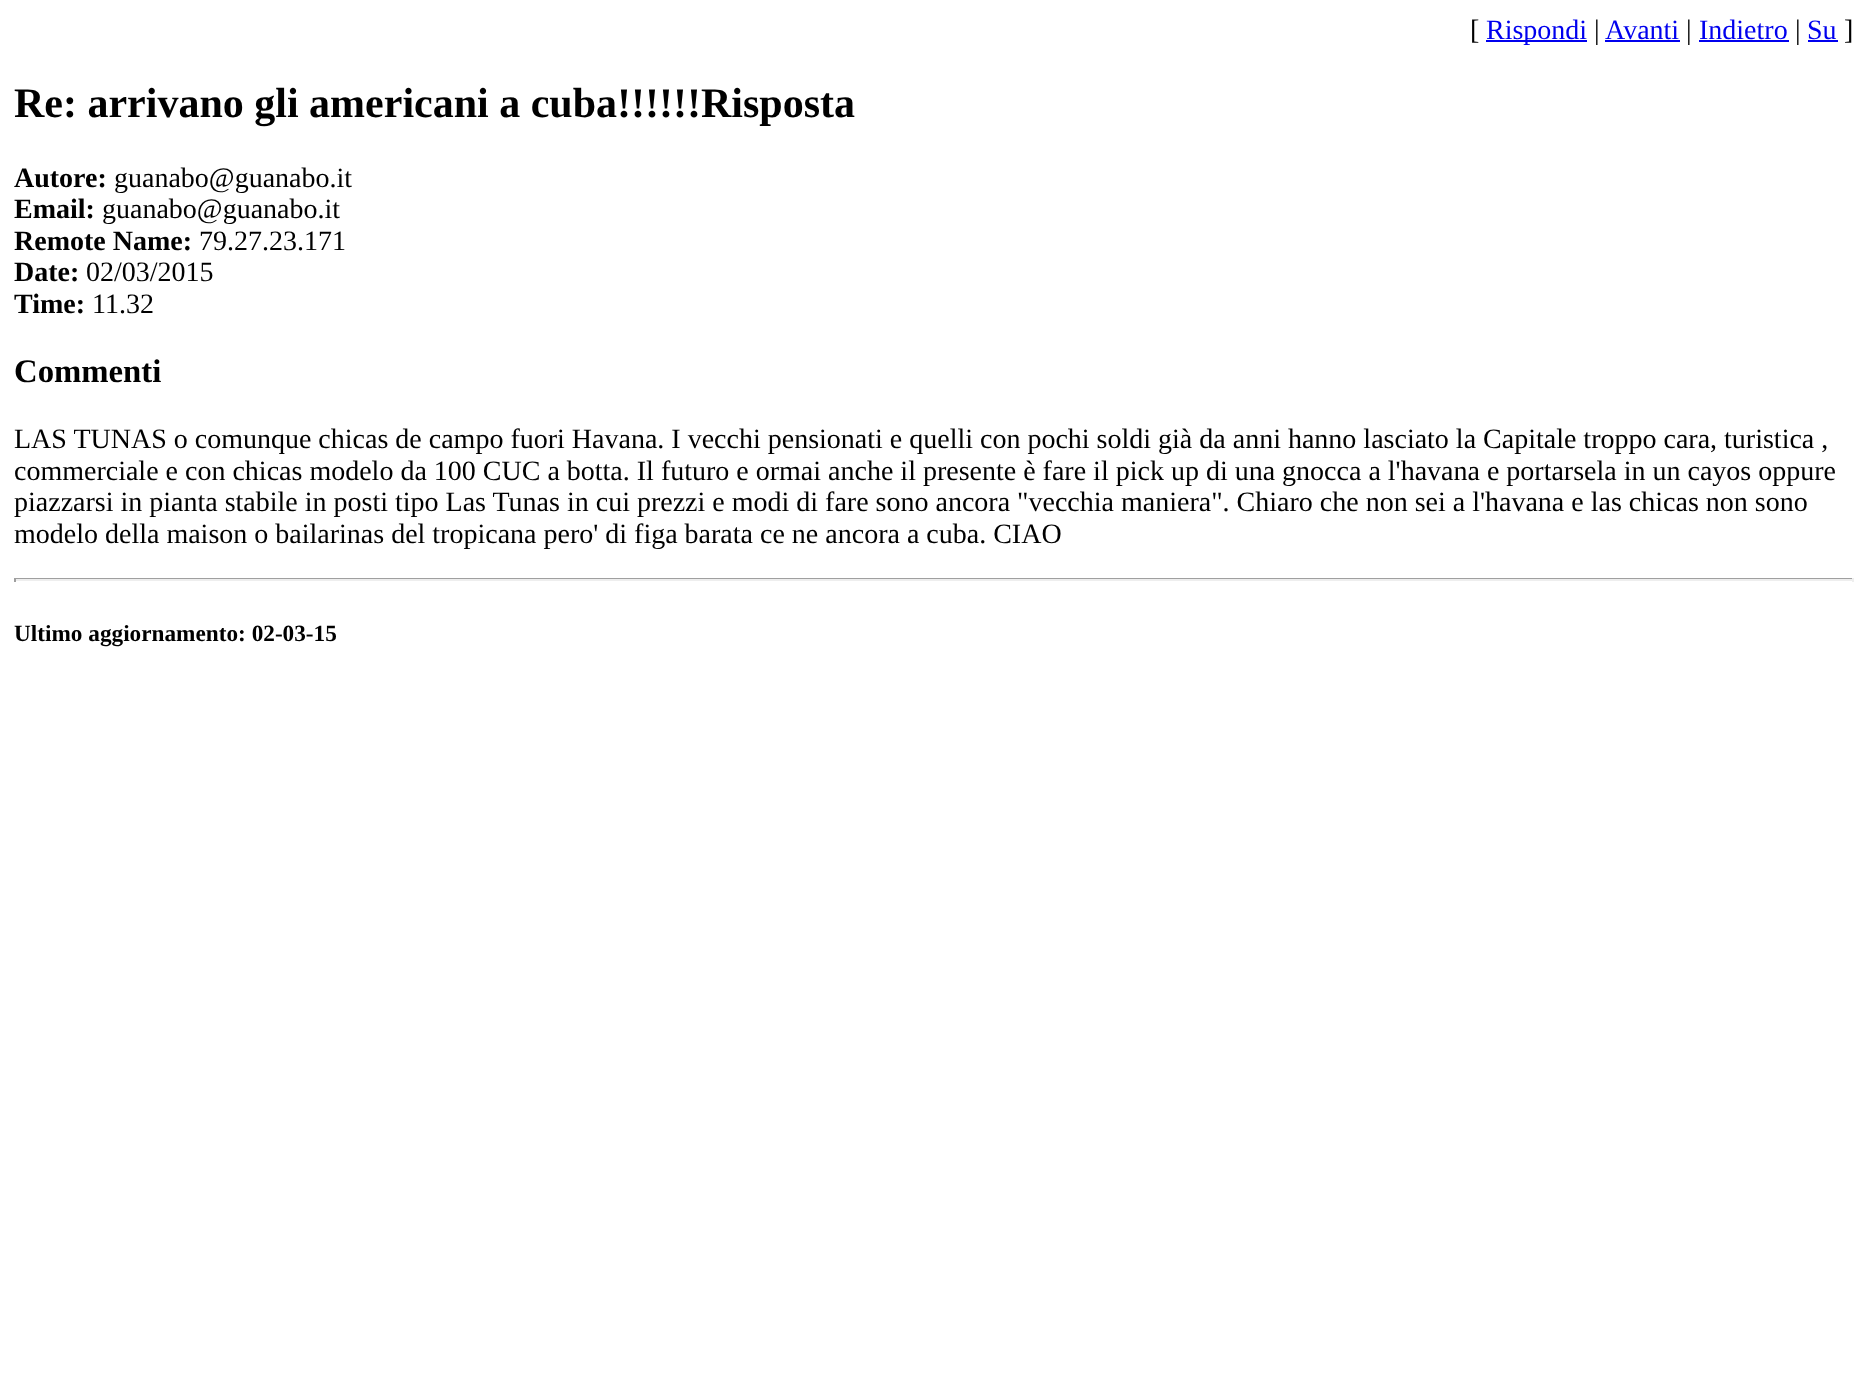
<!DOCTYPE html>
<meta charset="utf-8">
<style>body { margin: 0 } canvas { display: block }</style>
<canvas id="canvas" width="1867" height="1383"></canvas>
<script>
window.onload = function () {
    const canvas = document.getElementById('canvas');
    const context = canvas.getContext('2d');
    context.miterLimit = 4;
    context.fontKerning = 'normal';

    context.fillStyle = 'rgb(255, 255, 255)';
    context.fillRect(0, 0, 1867, 1383);
    context.fillStyle = 'rgb(0, 0, 238)';
    context.fillRect(1486, 40, 101, 2);
    context.fillRect(1605, 40, 75, 2);
    context.fillRect(1699, 40, 90, 2);
    context.fillRect(1808, 40, 30, 2);
    context.fillStyle = 'rgb(159, 159, 159)';
    context.fillRect(14, 578, 1839, 1);
    context.fillStyle = 'rgb(238, 238, 238)';
    context.fillRect(1852, 578, 2, 4);
    context.fillRect(14, 579, 1839, 2);
    context.fillStyle = 'rgb(159, 159, 159)';
    context.fillRect(14, 578, 2, 4);
    context.font = '28px Liberation Serif';
    context.fillStyle = 'rgb(0, 0, 0)';
    context.fillText('[', 1470, 39);
    context.fillStyle = 'rgb(0, 0, 238)';
    context.fillText('Rispondi', 1486, 39);
    context.fillStyle = 'rgb(0, 0, 0)';
    context.fillText('|', 1594, 39);
    context.fillStyle = 'rgb(0, 0, 238)';
    context.fillText('Avanti', 1605, 39);
    context.fillStyle = 'rgb(0, 0, 0)';
    context.fillText('|', 1686, 39);
    context.fillStyle = 'rgb(0, 0, 238)';
    context.fillText('Indietro', 1699, 39);
    context.fillStyle = 'rgb(0, 0, 0)';
    context.fillText('|', 1795, 39);
    context.fillStyle = 'rgb(0, 0, 238)';
    context.fillText('Su', 1807, 39);
    context.fillStyle = 'rgb(0, 0, 0)';
    context.fillText(']', 1844, 39);
    context.font = 'bold 42px Liberation Serif';
    context.fillText('Re: arrivano gli americani a cuba!!!!!!Risposta', 14, 117);
    context.font = 'bold 28px Liberation Serif';
    context.fillText('Autore:', 14, 187);
    context.font = '28px Liberation Serif';
    context.fillText('guanabo@guanabo.it', 114, 187);
    context.font = 'bold 28px Liberation Serif';
    context.fillText('Email:', 14, 218);
    context.font = '28px Liberation Serif';
    context.fillText('guanabo@guanabo.it', 102, 218);
    context.font = 'bold 28px Liberation Serif';
    context.fillText('Remote Name:', 14, 250);
    context.font = '28px Liberation Serif';
    context.fillText('79.27.23.171', 199, 250);
    context.font = 'bold 28px Liberation Serif';
    context.fillText('Date:', 14, 281);
    context.font = '28px Liberation Serif';
    context.fillText('02/03/2015', 86, 281);
    context.font = 'bold 28px Liberation Serif';
    context.fillText('Time:', 14, 313);
    context.font = '28px Liberation Serif';
    context.fillText('11.32', 92, 313);
    context.font = 'bold 32.75px Liberation Serif';
    context.fillText('Commenti', 14, 382);
    context.font = '28px Liberation Serif';
    context.fillText('LAS TUNAS o comunque chicas de campo fuori Havana. I vecchi pensionati e quelli con pochi soldi già da anni hanno lasciato la Capitale troppo cara, turistica ,', 14, 448);
    context.fillText('commerciale e con chicas modelo da 100 CUC a botta. Il futuro e ormai anche il presente è fare il pick up di una gnocca a l\'havana e portarsela in un cayos oppure', 14, 480);
    context.fillText('piazzarsi in pianta stabile in posti tipo Las Tunas in cui prezzi e modi di fare sono ancora "vecchia maniera". Chiaro che non sei a l\'havana e las chicas non sono', 14, 511);
    context.fillText('modelo della maison o bailarinas del tropicana pero\' di figa barata ce ne ancora a cuba. CIAO', 14, 543);
    context.font = 'bold 23.25px Liberation Serif';
    context.fillText('Ultimo aggiornamento: 02-03-15', 14, 641);
};
</script>
